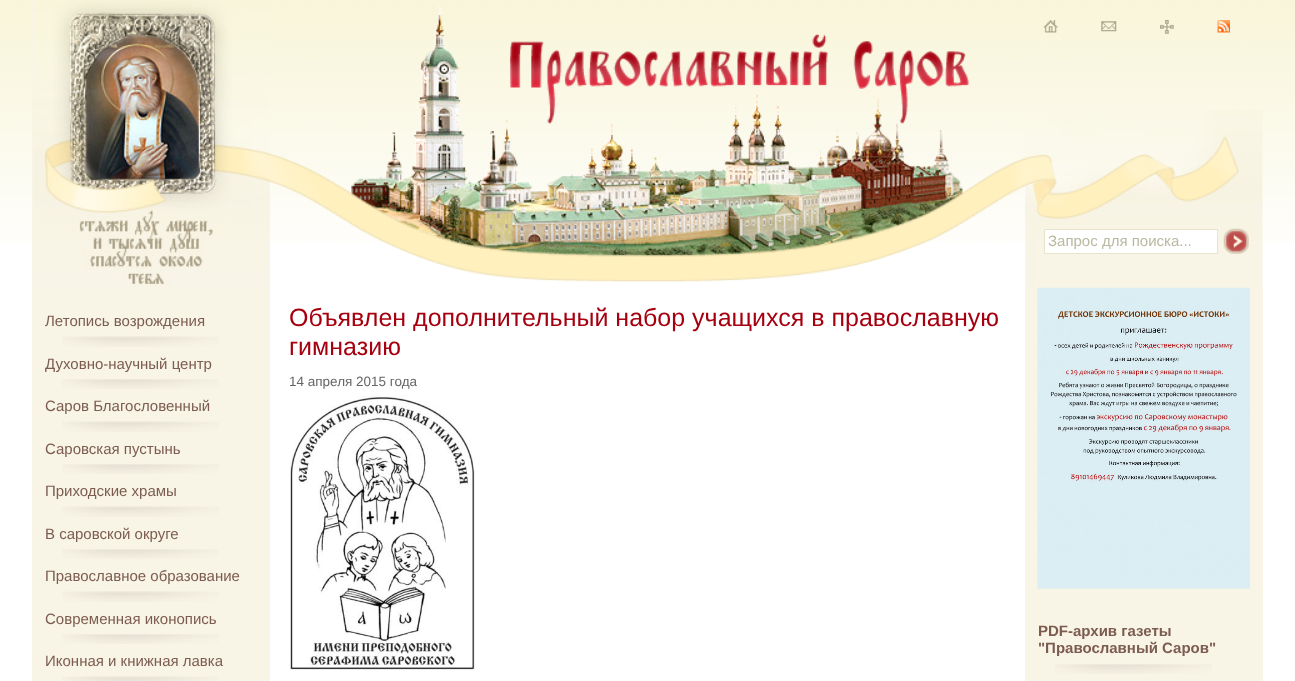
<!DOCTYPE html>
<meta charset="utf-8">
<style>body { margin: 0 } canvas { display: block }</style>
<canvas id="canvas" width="1295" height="681"></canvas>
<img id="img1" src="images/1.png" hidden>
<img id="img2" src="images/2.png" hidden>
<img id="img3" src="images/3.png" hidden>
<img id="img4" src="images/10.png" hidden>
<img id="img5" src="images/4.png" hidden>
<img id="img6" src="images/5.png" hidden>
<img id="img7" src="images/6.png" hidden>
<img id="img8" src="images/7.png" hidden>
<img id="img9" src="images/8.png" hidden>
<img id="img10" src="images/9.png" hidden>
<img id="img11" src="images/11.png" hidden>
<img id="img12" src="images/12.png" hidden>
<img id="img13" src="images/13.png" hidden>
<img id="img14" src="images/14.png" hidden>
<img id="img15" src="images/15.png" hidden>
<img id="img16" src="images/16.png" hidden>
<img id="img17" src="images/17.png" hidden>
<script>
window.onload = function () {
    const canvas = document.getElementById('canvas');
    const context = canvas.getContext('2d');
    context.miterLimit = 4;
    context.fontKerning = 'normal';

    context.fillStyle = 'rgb(255, 255, 255)';
    context.fillRect(0, 0, 1295, 681);
    context.drawImage(document.getElementById('img1'), 0, 0, 1295, 242);
    context.fillStyle = 'rgb(248, 244, 230)';
    context.fillRect(32, 0, 238, 681);
    context.drawImage(document.getElementById('img2'), 1025, 110, 238, 177);
    context.drawImage(document.getElementById('img3'), 33, 0, 237, 287);
    context.drawImage(document.getElementById('img4'), 270, 136, 969, 146);
    context.drawImage(document.getElementById('img5'), 351, 5, 612, 252);
    context.drawImage(document.getElementById('img6'), 1043, 20, 15, 13);
    context.drawImage(document.getElementById('img7'), 1101, 21, 16, 11);
    context.drawImage(document.getElementById('img8'), 1160, 20, 14, 14);
    context.drawImage(document.getElementById('img9'), 1217, 20, 13, 13);
    context.drawImage(document.getElementById('img10'), 510, 34, 459, 90);
    context.fillStyle = 'rgb(255, 255, 255)';
    context.beginPath();
    context.rect(1044.5, 229.5, 173, 24);
    context.fill();
    context.strokeStyle = 'rgb(232, 227, 203)';
    context.stroke();
    context.drawImage(document.getElementById('img11'), 1223, 228, 26, 26);
    context.fillStyle = 'rgb(248, 244, 230)';
    context.fillRect(1025, 287, 238, 394);
    context.drawImage(document.getElementById('img12'), 62, 336, 157, 11);
    context.drawImage(document.getElementById('img13'), 62, 379, 157, 10);
    context.drawImage(document.getElementById('img12'), 62, 421, 157, 11);
    context.drawImage(document.getElementById('img13'), 62, 464, 157, 10);
    context.drawImage(document.getElementById('img12'), 62, 506, 157, 11);
    context.drawImage(document.getElementById('img13'), 62, 549, 157, 10);
    context.drawImage(document.getElementById('img12'), 62, 591, 157, 11);
    context.drawImage(document.getElementById('img13'), 62, 634, 157, 10);
    context.drawImage(document.getElementById('img14'), 62, 676, 157, 5);
    context.drawImage(document.getElementById('img15'), 289, 395, 186, 275);
    context.drawImage(document.getElementById('img16'), 1037, 287, 213, 302);
    context.drawImage(document.getElementById('img17'), 1055, 664, 157, 10);
    context.font = '15px Liberation Sans';
    context.fillStyle = 'rgb(185, 184, 160)';
    context.fillText('Запрос для поиска...', 1048, 246);
    context.fillStyle = 'rgb(124, 92, 81)';
    context.fillText('Летопись возрождения', 45, 326);
    context.fillText('Духовно-научный центр', 45, 369);
    context.fillText('Саров Благословенный', 45, 411);
    context.fillText('Саровская пустынь', 45, 454);
    context.fillText('Приходские храмы', 45, 496);
    context.fillText('В саровской округе', 45, 539);
    context.fillText('Православное образование', 45, 581);
    context.fillText('Современная иконопись', 45, 624);
    context.fillText('Иконная и книжная лавка', 45, 666);
    context.font = '25px Liberation Sans';
    context.fillStyle = 'rgb(166, 0, 16)';
    context.fillText('Объявлен дополнительный набор учащихся в православную', 289, 326);
    context.fillText('гимназию', 289, 355);
    context.font = '13.5px Liberation Sans';
    context.fillStyle = 'rgb(102, 102, 102)';
    context.fillText('14 апреля 2015 года', 289, 386);
    context.font = 'bold 15px Liberation Sans';
    context.fillStyle = 'rgb(124, 92, 81)';
    context.fillText('PDF-архив газеты', 1038, 636);
    context.fillText('"Православный Саров"', 1038, 653);
};
</script>
